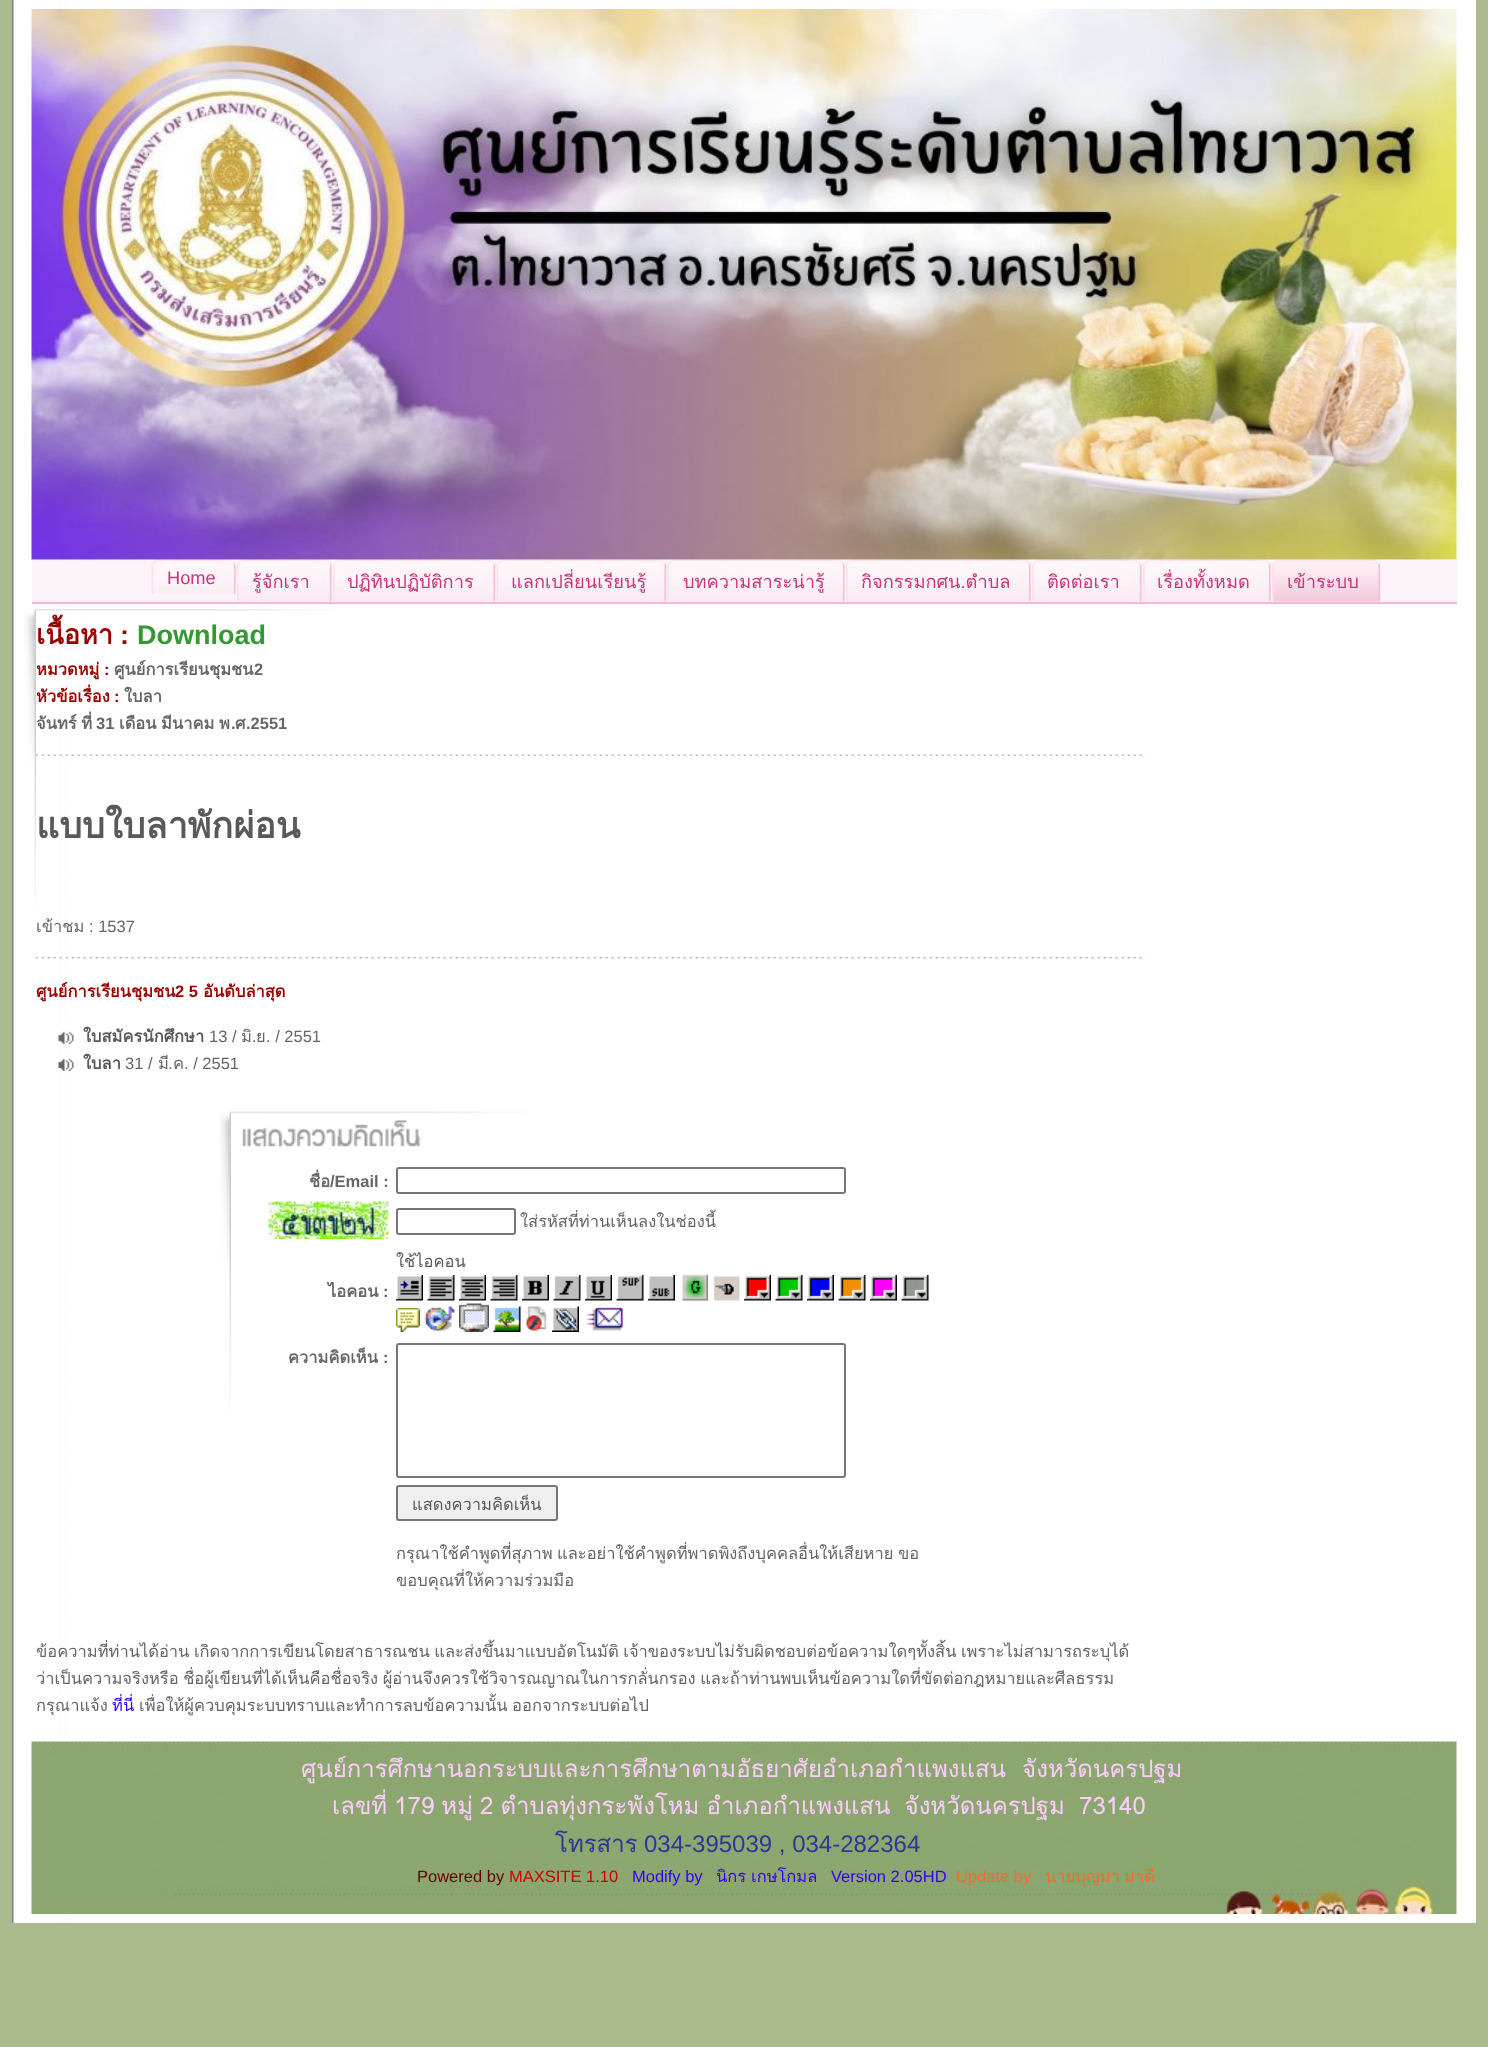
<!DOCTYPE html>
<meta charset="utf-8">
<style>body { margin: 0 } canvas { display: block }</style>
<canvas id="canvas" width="1488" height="2047"></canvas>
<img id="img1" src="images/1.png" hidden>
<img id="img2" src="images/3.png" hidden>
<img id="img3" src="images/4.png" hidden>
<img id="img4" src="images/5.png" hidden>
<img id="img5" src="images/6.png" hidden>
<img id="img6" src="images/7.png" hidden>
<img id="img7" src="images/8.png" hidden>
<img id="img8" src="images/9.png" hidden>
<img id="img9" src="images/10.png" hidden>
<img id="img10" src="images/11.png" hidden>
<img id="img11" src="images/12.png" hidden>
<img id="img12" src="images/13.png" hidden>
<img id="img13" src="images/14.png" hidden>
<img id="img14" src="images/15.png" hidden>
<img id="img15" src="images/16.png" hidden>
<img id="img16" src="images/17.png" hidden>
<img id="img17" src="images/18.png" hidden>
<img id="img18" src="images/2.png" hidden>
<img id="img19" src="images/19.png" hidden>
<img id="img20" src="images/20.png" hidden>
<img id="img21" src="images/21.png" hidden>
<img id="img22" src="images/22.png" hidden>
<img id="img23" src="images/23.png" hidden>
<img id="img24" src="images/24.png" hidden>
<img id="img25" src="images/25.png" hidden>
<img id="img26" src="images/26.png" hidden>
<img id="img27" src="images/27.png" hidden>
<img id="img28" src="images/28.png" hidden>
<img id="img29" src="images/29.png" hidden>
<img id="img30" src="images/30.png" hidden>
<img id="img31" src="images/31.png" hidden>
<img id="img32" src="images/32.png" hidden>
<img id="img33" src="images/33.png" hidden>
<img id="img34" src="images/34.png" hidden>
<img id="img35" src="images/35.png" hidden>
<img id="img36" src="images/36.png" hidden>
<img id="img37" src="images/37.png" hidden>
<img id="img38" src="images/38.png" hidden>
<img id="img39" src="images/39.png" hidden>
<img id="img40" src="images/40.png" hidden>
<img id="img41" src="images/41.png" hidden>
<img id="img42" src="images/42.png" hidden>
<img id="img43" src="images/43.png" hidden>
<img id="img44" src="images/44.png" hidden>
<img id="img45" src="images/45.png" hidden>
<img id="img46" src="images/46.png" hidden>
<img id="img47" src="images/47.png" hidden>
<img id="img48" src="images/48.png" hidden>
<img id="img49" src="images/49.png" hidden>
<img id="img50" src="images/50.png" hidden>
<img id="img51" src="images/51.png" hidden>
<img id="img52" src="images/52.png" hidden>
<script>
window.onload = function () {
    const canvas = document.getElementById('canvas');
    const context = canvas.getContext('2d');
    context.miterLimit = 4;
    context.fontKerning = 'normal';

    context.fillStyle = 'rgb(171, 187, 141)';
    context.fillRect(0, 0, 1488, 2047);
    context.drawImage(document.getElementById('img1'), 12, 0, 1464, 1923);
    context.fillStyle = 'rgb(252, 243, 248)';
    context.fillRect(32, 560, 1425, 42);
    context.drawImage(document.getElementById('img2'), 151, 559, 7, 35);
    context.drawImage(document.getElementById('img3'), 157, 559, 79, 35);
    context.drawImage(document.getElementById('img4'), 237, 559, 6, 43);
    context.drawImage(document.getElementById('img5'), 243, 559, 89, 43);
    context.drawImage(document.getElementById('img6'), 333, 559, 6, 43);
    context.drawImage(document.getElementById('img7'), 339, 559, 157, 43);
    context.drawImage(document.getElementById('img8'), 496, 559, 7, 43);
    context.drawImage(document.getElementById('img9'), 502, 559, 165, 43);
    context.drawImage(document.getElementById('img10'), 667, 559, 7, 43);
    context.drawImage(document.getElementById('img11'), 673, 559, 172, 43);
    context.drawImage(document.getElementById('img4'), 846, 559, 6, 43);
    context.drawImage(document.getElementById('img12'), 852, 559, 179, 43);
    context.drawImage(document.getElementById('img6'), 1032, 559, 6, 43);
    context.drawImage(document.getElementById('img13'), 1038, 559, 104, 43);
    context.drawImage(document.getElementById('img14'), 1143, 559, 8, 43);
    context.drawImage(document.getElementById('img15'), 1149, 559, 122, 43);
    context.drawImage(document.getElementById('img16'), 1272, 559, 6, 43);
    context.drawImage(document.getElementById('img17'), 1278, 559, 103, 43);
    context.drawImage(document.getElementById('img18'), 31, 9, 1426, 551);
    context.fillStyle = 'rgb(244, 183, 214)';
    context.fillRect(32, 602, 1425, 2);
    context.drawImage(document.getElementById('img19'), 24, 609, 12, 299);
    context.drawImage(document.getElementById('img20'), 36, 609, 298, 2);
    context.drawImage(document.getElementById('img21'), 36, 754, 1110, 2);
    context.drawImage(document.getElementById('img22'), 36, 957, 1110, 2);
    context.drawImage(document.getElementById('img23'), 58, 1031, 16, 13);
    context.drawImage(document.getElementById('img23'), 58, 1058, 16, 13);
    context.drawImage(document.getElementById('img24'), 219, 1111, 12, 300);
    context.drawImage(document.getElementById('img25'), 231, 1111, 297, 3);
    context.drawImage(document.getElementById('img26'), 242, 1120, 179, 28);
    context.beginPath();
    context.roundRect(397, 1168, 448, 25, 2);
    context.strokeStyle = 'rgb(118, 118, 118)';
    context.lineWidth = 2;
    context.stroke();
    context.drawImage(document.getElementById('img27'), 268, 1201, 121, 38);
    context.beginPath();
    context.roundRect(397, 1209, 118, 25, 2);
    context.stroke();
    context.drawImage(document.getElementById('img28'), 396, 1275, 27, 26);
    context.drawImage(document.getElementById('img29'), 427, 1275, 28, 26);
    context.drawImage(document.getElementById('img30'), 459, 1275, 27, 26);
    context.drawImage(document.getElementById('img31'), 490, 1275, 28, 26);
    context.drawImage(document.getElementById('img32'), 522, 1275, 27, 26);
    context.drawImage(document.getElementById('img33'), 553, 1275, 28, 26);
    context.drawImage(document.getElementById('img34'), 585, 1275, 27, 26);
    context.drawImage(document.getElementById('img35'), 616, 1275, 28, 26);
    context.drawImage(document.getElementById('img36'), 648, 1275, 27, 26);
    context.drawImage(document.getElementById('img37'), 682, 1273, 26, 28);
    context.drawImage(document.getElementById('img38'), 713, 1276, 27, 25);
    context.drawImage(document.getElementById('img39'), 744, 1275, 27, 26);
    context.drawImage(document.getElementById('img40'), 775, 1275, 28, 26);
    context.drawImage(document.getElementById('img41'), 807, 1275, 27, 26);
    context.drawImage(document.getElementById('img42'), 838, 1275, 28, 26);
    context.drawImage(document.getElementById('img43'), 870, 1275, 27, 26);
    context.drawImage(document.getElementById('img44'), 901, 1275, 28, 26);
    context.drawImage(document.getElementById('img45'), 396, 1308, 24, 24);
    context.drawImage(document.getElementById('img46'), 424, 1306, 31, 25);
    context.drawImage(document.getElementById('img47'), 459, 1303, 30, 29);
    context.drawImage(document.getElementById('img48'), 493, 1306, 28, 26);
    context.drawImage(document.getElementById('img49'), 526, 1306, 21, 25);
    context.drawImage(document.getElementById('img50'), 552, 1306, 27, 26);
    context.drawImage(document.getElementById('img51'), 586, 1307, 37, 24);
    context.beginPath();
    context.roundRect(397, 1344, 448, 133, 2);
    context.stroke();
    context.fillStyle = 'rgb(239, 239, 239)';
    context.beginPath();
    context.roundRect(397, 1486, 160, 34, 2);
    context.fill();
    context.stroke();
    context.drawImage(document.getElementById('img52'), 31, 1741, 1426, 173);
    context.font = '18.25px Liberation Sans';
    context.fillStyle = 'rgb(199, 55, 125)';
    context.fillText('Home', 167, 584);
    context.font = '18.25px Loma';
    context.fillText('รู้จักเรา', 252, 588);
    context.fillText('ปฏิทินปฏิบัติการ', 347, 588);
    context.fillText('แลกเปลี่ยนเรียนรู้', 511, 588);
    context.fillText('บทความสาระน่ารู้', 683, 588);
    context.fillText('กิจกรรมกศน.ตำบล', 861, 588);
    context.fillText('ติดต่อเรา', 1047, 588);
    context.fillText('เรื่องทั้งหมด', 1157, 588);
    context.fillText('เข้าระบบ', 1287, 588);
    context.font = 'bold 27px Loma';
    context.fillStyle = 'rgb(153, 0, 0)';
    context.fillText('เนื้อหา', 36, 644);
    context.font = 'bold 27px Liberation Sans';
    context.fillText(':', 120, 644);
    context.fillStyle = 'rgb(51, 153, 51)';
    context.fillText('Download', 137, 644);
    context.font = 'bold 16.5px Loma';
    context.fillStyle = 'rgb(153, 0, 0)';
    context.fillText('หมวดหมู่', 36, 675);
    context.font = 'bold 16.5px Liberation Sans';
    context.fillText(':', 104, 675);
    context.font = 'bold 16.5px Loma';
    context.fillStyle = 'rgb(102, 102, 102)';
    context.fillText('ศูนย์การเรียนชุมชน', 114, 675);
    context.font = 'bold 16.5px Liberation Sans';
    context.fillText('2', 254, 675);
    context.font = 'bold 16.5px Loma';
    context.fillStyle = 'rgb(153, 0, 0)';
    context.fillText('หัวข้อเรื่อง', 36, 702);
    context.font = 'bold 16.5px Liberation Sans';
    context.fillText(':', 114, 702);
    context.font = 'bold 16.5px Loma';
    context.fillStyle = 'rgb(102, 102, 102)';
    context.fillText('ใบลา', 124, 702);
    context.wordSpacing = '-1px';
    context.fillText('จันทร์ ที่', 36, 729);
    context.wordSpacing = '0px';
    context.font = 'bold 16.5px Liberation Sans';
    context.fillText('31', 96, 729);
    context.wordSpacing = '-1px';
    context.font = 'bold 16.5px Loma';
    context.fillText('เดือน มีนาคม พ', 119, 729);
    context.wordSpacing = '0px';
    context.font = 'bold 16.5px Liberation Sans';
    context.fillText('.', 231, 729);
    context.font = 'bold 16.5px Loma';
    context.fillText('ศ', 235, 729);
    context.font = 'bold 16.5px Liberation Sans';
    context.fillText('.2551', 246, 729);
    context.font = 'bold 36px Loma';
    context.fillStyle = 'rgb(88, 89, 91)';
    context.fillText('แบบใบลาพักผ่อน', 36, 838);
    context.font = '16.5px Loma';
    context.fillStyle = 'rgb(102, 102, 102)';
    context.fillText('เข้าชม', 36, 932);
    context.font = '16.5px Liberation Sans';
    context.fillText(': 1537', 89, 932);
    context.font = 'bold 16.5px Loma';
    context.fillStyle = 'rgb(153, 0, 0)';
    context.fillText('ศูนย์การเรียนชุมชน', 36, 997);
    context.font = 'bold 16.5px Liberation Sans';
    context.fillText('2 5', 175, 997);
    context.font = 'bold 16.5px Loma';
    context.fillText('อันดับล่าสุด', 203, 997);
    context.fillStyle = 'rgb(88, 89, 91)';
    context.fillText('ใบสมัครนักศึกษา', 83, 1042);
    context.font = '16.5px Liberation Sans';
    context.fillStyle = 'rgb(102, 102, 102)';
    context.fillText('13 /', 209, 1042);
    context.font = '16.5px Loma';
    context.fillText('มิ', 241, 1042);
    context.font = '16.5px Liberation Sans';
    context.fillText('.', 252, 1042);
    context.font = '16.5px Loma';
    context.fillText('ย', 256, 1042);
    context.font = '16.5px Liberation Sans';
    context.fillText('. / 2551', 266, 1042);
    context.font = 'bold 16.5px Loma';
    context.fillStyle = 'rgb(88, 89, 91)';
    context.fillText('ใบลา', 83, 1069);
    context.font = '16.5px Liberation Sans';
    context.fillStyle = 'rgb(102, 102, 102)';
    context.fillText('31 /', 125, 1069);
    context.font = '16.5px Loma';
    context.fillText('มี', 158, 1069);
    context.font = '16.5px Liberation Sans';
    context.fillText('.', 168, 1069);
    context.font = '16.5px Loma';
    context.fillText('ค', 173, 1069);
    context.font = '16.5px Liberation Sans';
    context.fillText('. / 2551', 184, 1069);
    context.font = 'bold 16.5px Loma';
    context.fillText('ชื่อ', 309, 1187);
    context.font = 'bold 16.5px Liberation Sans';
    context.fillText('/Email :', 330, 1187);
    context.font = '16.5px Loma';
    context.fillText('ใส่รหัสที่ท่านเห็นลงในช่องนี้', 520, 1227);
    context.fillStyle = 'rgb(88, 89, 91)';
    context.fillText('ใช้ไอคอน', 396, 1267);
    context.font = 'bold 16.5px Loma';
    context.fillStyle = 'rgb(102, 102, 102)';
    context.fillText('ไอคอน', 328, 1297);
    context.font = 'bold 16.5px Liberation Sans';
    context.fillText(':', 383, 1297);
    context.font = 'bold 16.5px Loma';
    context.fillText('ความคิดเห็น', 288, 1363);
    context.font = 'bold 16.5px Liberation Sans';
    context.fillText(':', 383, 1363);
    context.font = '16.5px Loma';
    context.fillStyle = 'rgb(88, 89, 91)';
    context.fillText('แสดงความคิดเห็น', 412, 1510);
    context.wordSpacing = '-1px';
    context.fillStyle = 'rgb(102, 102, 102)';
    context.fillText('กรุณาใช้คำพูดที่สุภาพ และอย่าใช้คำพูดที่พาดพิงถึงบุคคลอื่นให้เสียหาย ขอ', 396, 1559);
    context.wordSpacing = '0px';
    context.fillText('ขอบคุณที่ให้ความร่วมมือ', 396, 1586);
    context.wordSpacing = '-1px';
    context.fillText('ข้อความที่ท่านได้อ่าน เกิดจากการเขียนโดยสาธารณชน และส่งขึ้นมาแบบอัตโนมัติ เจ้าของระบบไม่รับผิดชอบต่อข้อความใดๆทั้งสิ้น เพราะไม่สามารถระบุได้', 36, 1657);
    context.fillText('ว่าเป็นความจริงหรือ ชื่อผู้เขียนที่ได้เห็นคือชื่อจริง ผู้อ่านจึงควรใช้วิจารณญาณในการกลั่นกรอง และถ้าท่านพบเห็นข้อความใดที่ขัดต่อกฎหมายและศีลธรรม', 36, 1684);
    context.wordSpacing = '0px';
    context.fillText('กรุณาแจ้ง', 36, 1711);
    context.fillStyle = 'rgb(51, 0, 255)';
    context.fillText('ที่นี่', 112, 1711);
    context.wordSpacing = '-1px';
    context.fillStyle = 'rgb(102, 102, 102)';
    context.fillText('เพื่อให้ผู้ควบคุมระบบทราบและทำการลบข้อความนั้น ออกจากระบบต่อไป', 139, 1711);
    context.wordSpacing = '0px';
    context.font = '24px Loma';
    context.fillStyle = 'rgb(255, 204, 255)';
    context.fillText('ศูนย์การศึกษานอกระบบและการศึกษาตามอัธยาศัยอำเภอกำแพงแสน  จังหวัดนครปฐม', 301, 1777);
    context.wordSpacing = '-1px';
    context.fillText('เลขที่ 179 หมู่ 2 ตำบลทุ่งกระพังโหม อำเภอกำแพงแสน  จังหวัดนครปฐม  73140', 332, 1814);
    context.wordSpacing = '0px';
    context.fillStyle = 'rgb(51, 51, 153)';
    context.fillText('โทรสาร', 555, 1852);
    context.font = '24px Liberation Sans';
    context.fillText('034-395039 , 034-282364', 644, 1852);
    context.font = '16.5px Liberation Sans';
    context.fillStyle = 'rgb(102, 0, 0)';
    context.fillText('Powered by', 417, 1882);
    context.fillStyle = 'rgb(204, 0, 0)';
    context.fillText('MAXSITE 1.10', 509, 1882);
    context.fillStyle = 'rgb(51, 0, 255)';
    context.fillText('Modify by', 632, 1882);
    context.font = '16.5px Loma';
    context.fillText('นิกร', 716, 1882);
    context.fillText('เกษโกมล', 751, 1882);
    context.font = '16.5px Liberation Sans';
    context.fillText('Version 2.05HD', 831, 1882);
    context.fillStyle = 'rgb(255, 102, 51)';
    context.fillText('Update by', 956, 1882);
    context.font = '16.5px Loma';
    context.fillText('นายบุญมา', 1045, 1882);
    context.fillText('มาดี', 1124, 1882);
};
</script>
